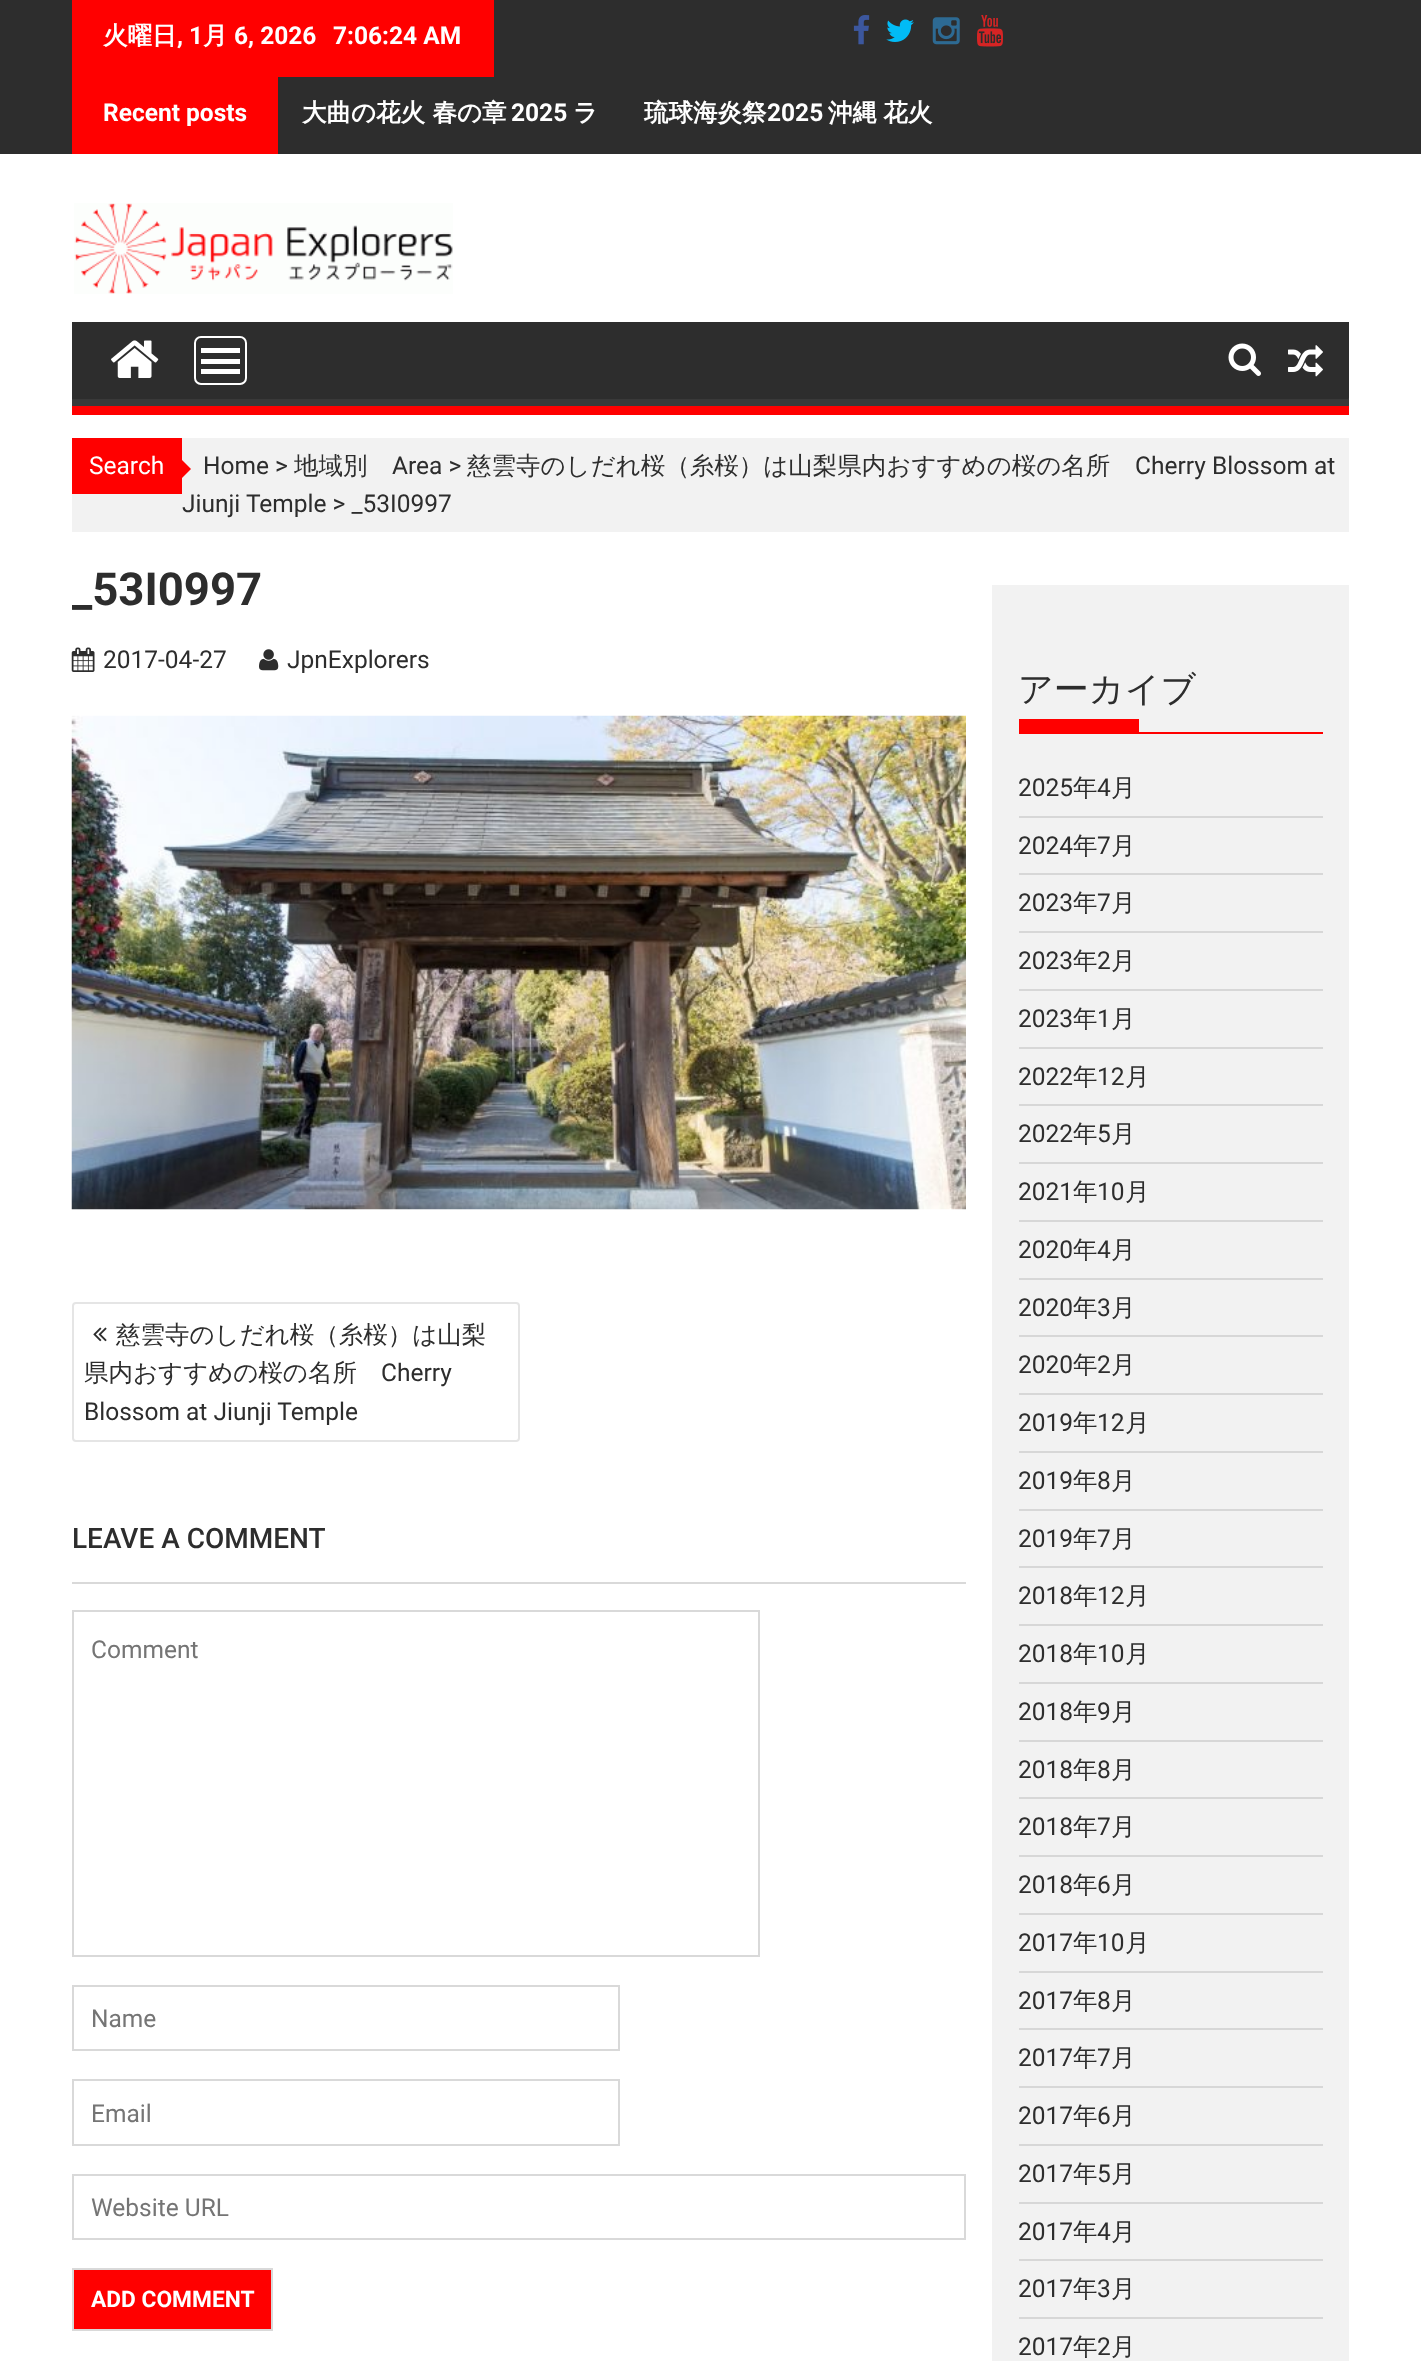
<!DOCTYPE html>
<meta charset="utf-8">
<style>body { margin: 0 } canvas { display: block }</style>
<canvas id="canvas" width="1421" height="2361"></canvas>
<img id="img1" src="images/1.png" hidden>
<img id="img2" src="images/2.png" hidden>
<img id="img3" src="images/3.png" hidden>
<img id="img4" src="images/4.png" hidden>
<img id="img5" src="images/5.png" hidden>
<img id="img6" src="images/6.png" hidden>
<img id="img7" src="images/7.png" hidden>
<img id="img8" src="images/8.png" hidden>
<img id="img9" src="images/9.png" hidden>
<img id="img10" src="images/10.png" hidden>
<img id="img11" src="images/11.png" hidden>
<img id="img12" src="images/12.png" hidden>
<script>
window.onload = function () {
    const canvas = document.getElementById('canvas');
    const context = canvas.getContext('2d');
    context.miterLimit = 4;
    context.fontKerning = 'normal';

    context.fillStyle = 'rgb(255, 255, 255)';
    context.fillRect(0, 0, 1421, 2361);
    context.fillStyle = 'rgb(45, 45, 45)';
    context.fillRect(0, 0, 1421, 154);
    context.fillStyle = 'rgb(255, 0, 0)';
    context.fillRect(72, 0, 422, 77);
    context.drawImage(document.getElementById('img1'), 853, 15, 17, 30);
    context.drawImage(document.getElementById('img2'), 886, 19, 28, 23);
    context.drawImage(document.getElementById('img3'), 932, 17, 28, 28);
    context.drawImage(document.getElementById('img4'), 977, 15, 26, 32);
    context.fillRect(72, 77, 206, 77);
    context.drawImage(document.getElementById('img5'), 74, 203, 379, 91);
    context.fillStyle = 'rgb(45, 45, 45)';
    context.fillRect(72, 322, 1277, 77);
    context.save();
    context.beginPath();
    context.rect(72, 322, 1277, 84);
    context.clip();
    context.fillStyle = 'rgb(57, 57, 57)';
    context.beginPath();
    context.moveTo(-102, 149);
    context.lineTo(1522, 149);
    context.lineTo(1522, 579);
    context.lineTo(-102, 579);
    context.closePath();
    context.moveTo(70, 312);
    context.lineTo(1348, 312);
    context.bezierCurveTo(1348, 312, 1349, 312, 1349, 313);
    context.lineTo(1349, 397);
    context.bezierCurveTo(1349, 398, 1348, 399, 1348, 399);
    context.lineTo(70, 399);
    context.bezierCurveTo(69, 399, 68, 398, 68, 397);
    context.lineTo(68, 313);
    context.bezierCurveTo(68, 312, 69, 312, 70, 312);
    context.closePath();
    context.fill('evenodd');
    context.restore();
    context.fillStyle = 'rgb(255, 0, 0)';
    context.fillRect(72, 406, 1277, 9);
    context.beginPath();
    context.roundRect(195, 337, 51, 47, 6);
    context.strokeStyle = 'rgb(255, 255, 255)';
    context.lineWidth = 2;
    context.stroke();
    context.fillStyle = 'rgb(255, 255, 255)';
    context.fillRect(201, 369, 39, 5);
    context.fillRect(201, 359, 39, 5);
    context.fillRect(201, 348, 39, 5);
    context.drawImage(document.getElementById('img6'), 111, 340, 48, 38);
    context.drawImage(document.getElementById('img7'), 1228, 343, 33, 33);
    context.drawImage(document.getElementById('img8'), 1288, 345, 35, 32);
    context.fillStyle = 'rgb(242, 242, 242)';
    context.fillRect(72, 438, 1277, 94);
    context.fillStyle = 'rgb(255, 0, 0)';
    context.fillRect(72, 438, 110, 56);
    context.beginPath();
    context.moveTo(182, 478);
    context.lineTo(182, 460);
    context.lineTo(191, 469);
    context.closePath();
    context.fill();
    context.drawImage(document.getElementById('img9'), 71, 647, 24, 25);
    context.drawImage(document.getElementById('img10'), 259, 649, 20, 22);
    context.drawImage(document.getElementById('img11'), 71, 715, 895, 495);
    context.beginPath();
    context.roundRect(73, 1303, 446, 138, 3);
    context.strokeStyle = 'rgb(229, 229, 229)';
    context.stroke();
    context.drawImage(document.getElementById('img12'), 93, 1327, 14, 15);
    context.fillStyle = 'rgb(217, 217, 217)';
    context.fillRect(72, 1582, 894, 2);
    context.strokeStyle = 'rgb(217, 217, 217)';
    context.strokeRect(73, 1611, 686, 345);
    context.strokeRect(73, 1986, 546, 64);
    context.strokeRect(73, 2080, 546, 65);
    context.strokeRect(73, 2175, 892, 64);
    context.fillStyle = 'rgb(255, 0, 0)';
    context.beginPath();
    context.rect(73, 2269, 199, 61);
    context.fill();
    context.stroke();
    context.fillStyle = 'rgb(242, 242, 242)';
    context.fillRect(992, 585, 357, 1776);
    context.fillStyle = 'rgb(255, 0, 0)';
    context.fillRect(1019, 732, 304, 2);
    context.fillRect(1019, 719, 120, 13);
    context.fillStyle = 'rgb(215, 215, 215)';
    context.fillRect(1019, 816, 304, 2);
    context.fillRect(1019, 873, 304, 2);
    context.fillRect(1019, 931, 304, 2);
    context.fillRect(1019, 989, 304, 2);
    context.fillRect(1019, 1047, 304, 2);
    context.fillRect(1019, 1104, 304, 2);
    context.fillRect(1019, 1162, 304, 2);
    context.fillRect(1019, 1220, 304, 2);
    context.fillRect(1019, 1278, 304, 2);
    context.fillRect(1019, 1335, 304, 2);
    context.fillRect(1019, 1393, 304, 2);
    context.fillRect(1019, 1451, 304, 2);
    context.fillRect(1019, 1509, 304, 2);
    context.fillRect(1019, 1566, 304, 2);
    context.fillRect(1019, 1624, 304, 2);
    context.fillRect(1019, 1682, 304, 2);
    context.fillRect(1019, 1740, 304, 2);
    context.fillRect(1019, 1797, 304, 2);
    context.fillRect(1019, 1855, 304, 2);
    context.fillRect(1019, 1913, 304, 2);
    context.fillRect(1019, 1971, 304, 2);
    context.fillRect(1019, 2028, 304, 2);
    context.fillRect(1019, 2086, 304, 2);
    context.fillRect(1019, 2144, 304, 2);
    context.fillRect(1019, 2202, 304, 2);
    context.fillRect(1019, 2259, 304, 2);
    context.fillRect(1019, 2317, 304, 2);
    context.font = 'bold 24.5px WenQuanYi Zen Hei';
    context.fillStyle = 'rgb(255, 255, 255)';
    context.fillText('火曜日', 103, 44);
    context.font = 'bold 24.5px Roboto';
    context.fillText(', 1', 177, 44);
    context.font = 'bold 24.5px WenQuanYi Zen Hei';
    context.fillText('月', 203, 44);
    context.font = 'bold 24.5px Roboto';
    context.fillText('6, 2026', 234, 44);
    context.fillText('7:06:24 AM', 333, 44);
    context.fillText('Recent posts', 103, 121);
    context.font = 'bold 24.5px WenQuanYi Zen Hei';
    context.fillText('大曲の花火 春の章', 302, 121);
    context.font = 'bold 24.5px Roboto';
    context.fillText('2025', 511, 121);
    context.font = 'bold 24.5px WenQuanYi Zen Hei';
    context.fillText('ラ', 573, 121);
    context.fillText('琉球海炎祭', 644, 121);
    context.font = 'bold 24.5px Roboto';
    context.fillText('2025', 767, 121);
    context.wordSpacing = '-1px';
    context.font = 'bold 24.5px WenQuanYi Zen Hei';
    context.fillText('沖縄 花火', 828, 121);
    context.wordSpacing = '0px';
    context.font = '24.5px Roboto';
    context.fillText('Search', 89, 474);
    context.fillStyle = 'rgb(45, 45, 45)';
    context.fillText('Home >', 203, 474);
    context.font = '500 24.5px WenQuanYi Zen Hei';
    context.fillText('地域別', 294, 474);
    context.font = '24.5px Roboto';
    context.fillText('Area >', 392, 474);
    context.font = '500 24.5px WenQuanYi Zen Hei';
    context.fillText('慈雲寺のしだれ桜（糸桜）は山梨県内おすすめの桜の名所', 467, 474);
    context.font = '24.5px Roboto';
    context.fillText('Cherry Blossom at', 1135, 474);
    context.fillText('Jiunji Temple > _53I0997', 182, 512);
    context.font = 'bold 45.5px Roboto';
    context.fillText('_53I0997', 72, 605);
    context.font = '24.5px Roboto';
    context.fillText('2017-04-27', 103, 668);
    context.fillText('JpnExplorers', 287, 668);
    context.font = '500 24.5px WenQuanYi Zen Hei';
    context.fillText('慈雲寺のしだれ桜（糸桜）は山梨', 116, 1343);
    context.fillText('県内おすすめの桜の名所', 84, 1381);
    context.font = '24.5px Roboto';
    context.fillText('Cherry', 381, 1381);
    context.fillText('Blossom at Jiunji Temple', 84, 1420);
    context.font = '500 28px Roboto';
    context.fillText('LEAVE A COMMENT', 72, 1548);
    context.font = '24.5px Roboto';
    context.fillStyle = 'rgb(117, 117, 117)';
    context.fillText('Comment', 91, 1658);
    context.fillText('Name', 91, 2027);
    context.fillText('Email', 91, 2122);
    context.fillText('Website URL', 91, 2216);
    context.font = 'bold 22.75px Roboto';
    context.fillStyle = 'rgb(255, 255, 255)';
    context.fillText('ADD COMMENT', 91, 2307);
    context.font = '500 35px WenQuanYi Zen Hei';
    context.fillStyle = 'rgb(45, 45, 45)';
    context.fillText('アーカイブ', 1018, 701);
    context.font = '24.5px Roboto';
    context.fillText('2025', 1018, 796);
    context.font = '500 24.5px WenQuanYi Zen Hei';
    context.fillText('年', 1073, 796);
    context.font = '24.5px Roboto';
    context.fillText('4', 1097, 796);
    context.font = '500 24.5px WenQuanYi Zen Hei';
    context.fillText('月', 1111, 796);
    context.font = '24.5px Roboto';
    context.fillText('2024', 1018, 854);
    context.font = '500 24.5px WenQuanYi Zen Hei';
    context.fillText('年', 1073, 854);
    context.font = '24.5px Roboto';
    context.fillText('7', 1097, 854);
    context.font = '500 24.5px WenQuanYi Zen Hei';
    context.fillText('月', 1111, 854);
    context.font = '24.5px Roboto';
    context.fillText('2023', 1018, 911);
    context.font = '500 24.5px WenQuanYi Zen Hei';
    context.fillText('年', 1073, 911);
    context.font = '24.5px Roboto';
    context.fillText('7', 1097, 911);
    context.font = '500 24.5px WenQuanYi Zen Hei';
    context.fillText('月', 1111, 911);
    context.font = '24.5px Roboto';
    context.fillText('2023', 1018, 969);
    context.font = '500 24.5px WenQuanYi Zen Hei';
    context.fillText('年', 1073, 969);
    context.font = '24.5px Roboto';
    context.fillText('2', 1097, 969);
    context.font = '500 24.5px WenQuanYi Zen Hei';
    context.fillText('月', 1111, 969);
    context.font = '24.5px Roboto';
    context.fillText('2023', 1018, 1027);
    context.font = '500 24.5px WenQuanYi Zen Hei';
    context.fillText('年', 1073, 1027);
    context.font = '24.5px Roboto';
    context.fillText('1', 1097, 1027);
    context.font = '500 24.5px WenQuanYi Zen Hei';
    context.fillText('月', 1111, 1027);
    context.font = '24.5px Roboto';
    context.fillText('2022', 1018, 1085);
    context.font = '500 24.5px WenQuanYi Zen Hei';
    context.fillText('年', 1073, 1085);
    context.font = '24.5px Roboto';
    context.fillText('12', 1097, 1085);
    context.font = '500 24.5px WenQuanYi Zen Hei';
    context.fillText('月', 1125, 1085);
    context.font = '24.5px Roboto';
    context.fillText('2022', 1018, 1142);
    context.font = '500 24.5px WenQuanYi Zen Hei';
    context.fillText('年', 1073, 1142);
    context.font = '24.5px Roboto';
    context.fillText('5', 1097, 1142);
    context.font = '500 24.5px WenQuanYi Zen Hei';
    context.fillText('月', 1111, 1142);
    context.font = '24.5px Roboto';
    context.fillText('2021', 1018, 1200);
    context.font = '500 24.5px WenQuanYi Zen Hei';
    context.fillText('年', 1073, 1200);
    context.font = '24.5px Roboto';
    context.fillText('10', 1097, 1200);
    context.font = '500 24.5px WenQuanYi Zen Hei';
    context.fillText('月', 1125, 1200);
    context.font = '24.5px Roboto';
    context.fillText('2020', 1018, 1258);
    context.font = '500 24.5px WenQuanYi Zen Hei';
    context.fillText('年', 1073, 1258);
    context.font = '24.5px Roboto';
    context.fillText('4', 1097, 1258);
    context.font = '500 24.5px WenQuanYi Zen Hei';
    context.fillText('月', 1111, 1258);
    context.font = '24.5px Roboto';
    context.fillText('2020', 1018, 1316);
    context.font = '500 24.5px WenQuanYi Zen Hei';
    context.fillText('年', 1073, 1316);
    context.font = '24.5px Roboto';
    context.fillText('3', 1097, 1316);
    context.font = '500 24.5px WenQuanYi Zen Hei';
    context.fillText('月', 1111, 1316);
    context.font = '24.5px Roboto';
    context.fillText('2020', 1018, 1373);
    context.font = '500 24.5px WenQuanYi Zen Hei';
    context.fillText('年', 1073, 1373);
    context.font = '24.5px Roboto';
    context.fillText('2', 1097, 1373);
    context.font = '500 24.5px WenQuanYi Zen Hei';
    context.fillText('月', 1111, 1373);
    context.font = '24.5px Roboto';
    context.fillText('2019', 1018, 1431);
    context.font = '500 24.5px WenQuanYi Zen Hei';
    context.fillText('年', 1073, 1431);
    context.font = '24.5px Roboto';
    context.fillText('12', 1097, 1431);
    context.font = '500 24.5px WenQuanYi Zen Hei';
    context.fillText('月', 1125, 1431);
    context.font = '24.5px Roboto';
    context.fillText('2019', 1018, 1489);
    context.font = '500 24.5px WenQuanYi Zen Hei';
    context.fillText('年', 1073, 1489);
    context.font = '24.5px Roboto';
    context.fillText('8', 1097, 1489);
    context.font = '500 24.5px WenQuanYi Zen Hei';
    context.fillText('月', 1111, 1489);
    context.font = '24.5px Roboto';
    context.fillText('2019', 1018, 1547);
    context.font = '500 24.5px WenQuanYi Zen Hei';
    context.fillText('年', 1073, 1547);
    context.font = '24.5px Roboto';
    context.fillText('7', 1097, 1547);
    context.font = '500 24.5px WenQuanYi Zen Hei';
    context.fillText('月', 1111, 1547);
    context.font = '24.5px Roboto';
    context.fillText('2018', 1018, 1604);
    context.font = '500 24.5px WenQuanYi Zen Hei';
    context.fillText('年', 1073, 1604);
    context.font = '24.5px Roboto';
    context.fillText('12', 1097, 1604);
    context.font = '500 24.5px WenQuanYi Zen Hei';
    context.fillText('月', 1125, 1604);
    context.font = '24.5px Roboto';
    context.fillText('2018', 1018, 1662);
    context.font = '500 24.5px WenQuanYi Zen Hei';
    context.fillText('年', 1073, 1662);
    context.font = '24.5px Roboto';
    context.fillText('10', 1097, 1662);
    context.font = '500 24.5px WenQuanYi Zen Hei';
    context.fillText('月', 1125, 1662);
    context.font = '24.5px Roboto';
    context.fillText('2018', 1018, 1720);
    context.font = '500 24.5px WenQuanYi Zen Hei';
    context.fillText('年', 1073, 1720);
    context.font = '24.5px Roboto';
    context.fillText('9', 1097, 1720);
    context.font = '500 24.5px WenQuanYi Zen Hei';
    context.fillText('月', 1111, 1720);
    context.font = '24.5px Roboto';
    context.fillText('2018', 1018, 1778);
    context.font = '500 24.5px WenQuanYi Zen Hei';
    context.fillText('年', 1073, 1778);
    context.font = '24.5px Roboto';
    context.fillText('8', 1097, 1778);
    context.font = '500 24.5px WenQuanYi Zen Hei';
    context.fillText('月', 1111, 1778);
    context.font = '24.5px Roboto';
    context.fillText('2018', 1018, 1835);
    context.font = '500 24.5px WenQuanYi Zen Hei';
    context.fillText('年', 1073, 1835);
    context.font = '24.5px Roboto';
    context.fillText('7', 1097, 1835);
    context.font = '500 24.5px WenQuanYi Zen Hei';
    context.fillText('月', 1111, 1835);
    context.font = '24.5px Roboto';
    context.fillText('2018', 1018, 1893);
    context.font = '500 24.5px WenQuanYi Zen Hei';
    context.fillText('年', 1073, 1893);
    context.font = '24.5px Roboto';
    context.fillText('6', 1097, 1893);
    context.font = '500 24.5px WenQuanYi Zen Hei';
    context.fillText('月', 1111, 1893);
    context.font = '24.5px Roboto';
    context.fillText('2017', 1018, 1951);
    context.font = '500 24.5px WenQuanYi Zen Hei';
    context.fillText('年', 1073, 1951);
    context.font = '24.5px Roboto';
    context.fillText('10', 1097, 1951);
    context.font = '500 24.5px WenQuanYi Zen Hei';
    context.fillText('月', 1125, 1951);
    context.font = '24.5px Roboto';
    context.fillText('2017', 1018, 2009);
    context.font = '500 24.5px WenQuanYi Zen Hei';
    context.fillText('年', 1073, 2009);
    context.font = '24.5px Roboto';
    context.fillText('8', 1097, 2009);
    context.font = '500 24.5px WenQuanYi Zen Hei';
    context.fillText('月', 1111, 2009);
    context.font = '24.5px Roboto';
    context.fillText('2017', 1018, 2066);
    context.font = '500 24.5px WenQuanYi Zen Hei';
    context.fillText('年', 1073, 2066);
    context.font = '24.5px Roboto';
    context.fillText('7', 1097, 2066);
    context.font = '500 24.5px WenQuanYi Zen Hei';
    context.fillText('月', 1111, 2066);
    context.font = '24.5px Roboto';
    context.fillText('2017', 1018, 2124);
    context.font = '500 24.5px WenQuanYi Zen Hei';
    context.fillText('年', 1073, 2124);
    context.font = '24.5px Roboto';
    context.fillText('6', 1097, 2124);
    context.font = '500 24.5px WenQuanYi Zen Hei';
    context.fillText('月', 1111, 2124);
    context.font = '24.5px Roboto';
    context.fillText('2017', 1018, 2182);
    context.font = '500 24.5px WenQuanYi Zen Hei';
    context.fillText('年', 1073, 2182);
    context.font = '24.5px Roboto';
    context.fillText('5', 1097, 2182);
    context.font = '500 24.5px WenQuanYi Zen Hei';
    context.fillText('月', 1111, 2182);
    context.font = '24.5px Roboto';
    context.fillText('2017', 1018, 2240);
    context.font = '500 24.5px WenQuanYi Zen Hei';
    context.fillText('年', 1073, 2240);
    context.font = '24.5px Roboto';
    context.fillText('4', 1097, 2240);
    context.font = '500 24.5px WenQuanYi Zen Hei';
    context.fillText('月', 1111, 2240);
    context.font = '24.5px Roboto';
    context.fillText('2017', 1018, 2297);
    context.font = '500 24.5px WenQuanYi Zen Hei';
    context.fillText('年', 1073, 2297);
    context.font = '24.5px Roboto';
    context.fillText('3', 1097, 2297);
    context.font = '500 24.5px WenQuanYi Zen Hei';
    context.fillText('月', 1111, 2297);
    context.font = '24.5px Roboto';
    context.fillText('2017', 1018, 2355);
    context.font = '500 24.5px WenQuanYi Zen Hei';
    context.fillText('年', 1073, 2355);
    context.font = '24.5px Roboto';
    context.fillText('2', 1097, 2355);
    context.font = '500 24.5px WenQuanYi Zen Hei';
    context.fillText('月', 1111, 2355);
};
</script>
